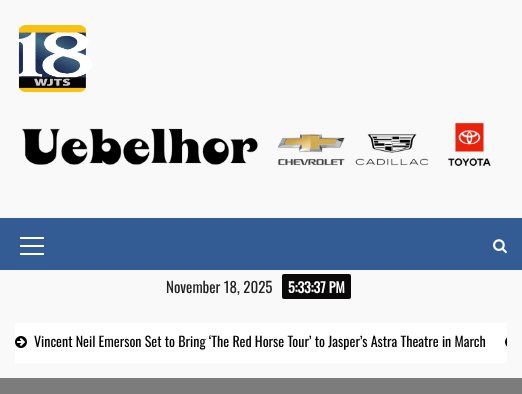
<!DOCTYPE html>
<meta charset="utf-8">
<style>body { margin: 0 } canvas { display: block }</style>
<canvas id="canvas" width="522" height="394"></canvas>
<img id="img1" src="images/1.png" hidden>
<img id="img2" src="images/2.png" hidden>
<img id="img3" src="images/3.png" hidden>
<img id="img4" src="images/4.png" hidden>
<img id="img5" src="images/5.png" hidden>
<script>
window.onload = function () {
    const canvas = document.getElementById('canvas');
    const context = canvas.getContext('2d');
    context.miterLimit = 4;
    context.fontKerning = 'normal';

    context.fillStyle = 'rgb(249, 249, 249)';
    context.fillRect(0, 0, 522, 394);
    context.drawImage(document.getElementById('img1'), 18, 25, 74, 67);
    context.drawImage(document.getElementById('img2'), 22, 123, 469, 43);
    context.fillStyle = 'rgb(50, 92, 147)';
    context.fillRect(0, 218, 522, 52);
    context.fillStyle = 'rgb(255, 255, 255)';
    context.fillRect(20, 237, 24, 2);
    context.fillRect(20, 245, 24, 2);
    context.fillRect(20, 253, 24, 2);
    context.drawImage(document.getElementById('img3'), 493, 239, 14, 15);
    context.fillStyle = 'rgb(10, 8, 8)';
    context.beginPath();
    context.roundRect(282, 274, 69, 25, 2);
    context.fill();
    context.fillStyle = 'rgb(255, 255, 255)';
    context.fillRect(15, 323, 492, 40);
    context.drawImage(document.getElementById('img4'), 15, 336, 12, 12);
    context.drawImage(document.getElementById('img5'), 505, 337, 2, 10);
    context.fillStyle = 'rgb(124, 124, 124)';
    context.fillRect(0, 378, 522, 16);
    context.font = '15px Oswald';
    context.fillStyle = 'rgb(34, 34, 34)';
    context.fillText('November 18, 2025', 166, 293);
    context.font = 'bold 14px Oswald';
    context.fillStyle = 'rgb(255, 255, 255)';
    context.fillText('5:33:37 PM', 288, 293);
    context.font = '14px Oswald';
    context.fillStyle = 'rgb(0, 0, 0)';
    context.fillText('Vincent Neil Emerson Set to Bring ‘The Red Horse Tour’ to Jasper’s Astra Theatre in March', 34, 347);
};
</script>
